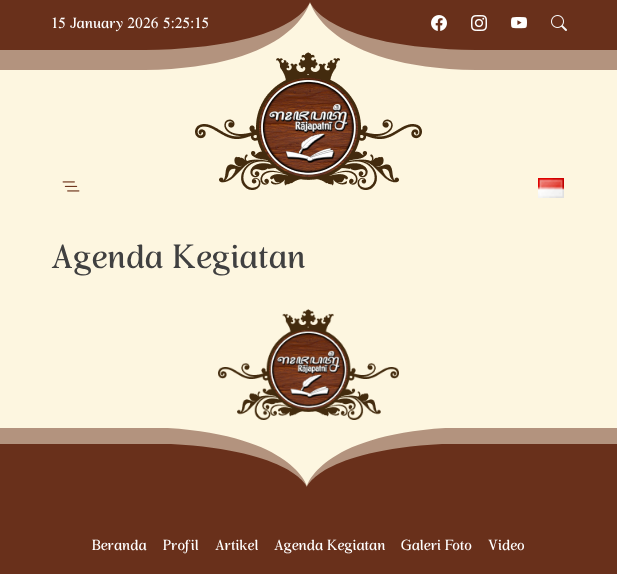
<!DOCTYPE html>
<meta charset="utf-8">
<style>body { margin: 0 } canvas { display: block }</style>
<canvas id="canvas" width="617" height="574"></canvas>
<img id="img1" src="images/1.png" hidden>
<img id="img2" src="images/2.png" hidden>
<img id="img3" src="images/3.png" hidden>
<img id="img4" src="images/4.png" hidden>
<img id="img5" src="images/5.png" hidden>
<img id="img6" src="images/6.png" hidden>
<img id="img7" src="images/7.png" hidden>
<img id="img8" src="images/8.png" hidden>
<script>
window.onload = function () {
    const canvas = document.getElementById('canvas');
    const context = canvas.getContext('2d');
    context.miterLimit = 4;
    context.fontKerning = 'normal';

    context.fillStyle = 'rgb(253, 246, 224)';
    context.fillRect(0, 0, 617, 574);
    context.fillStyle = 'rgb(179, 147, 126)';
    context.beginPath();
    context.moveTo(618, 0);
    context.lineTo(0, 0);
    context.lineTo(0, 70);
    context.lineTo(145, 70);
    context.bezierCurveTo(295, 68, 310, 2, 310, 2);
    context.bezierCurveTo(310, 2, 326, 68, 476, 70);
    context.lineTo(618, 70);
    context.closePath();
    context.fill();
    context.fillStyle = 'rgb(105, 48, 27)';
    context.beginPath();
    context.moveTo(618, 0);
    context.lineTo(0, 0);
    context.lineTo(0, 50);
    context.lineTo(145, 50);
    context.bezierCurveTo(295, 48, 310, 2, 310, 2);
    context.bezierCurveTo(310, 2, 326, 48, 476, 50);
    context.lineTo(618, 50);
    context.closePath();
    context.fill();
    context.drawImage(document.getElementById('img1'), 431, 15, 16, 16);
    context.drawImage(document.getElementById('img2'), 471, 15, 16, 16);
    context.drawImage(document.getElementById('img3'), 511, 17, 16, 12);
    context.drawImage(document.getElementById('img4'), 551, 15, 16, 16);
    context.drawImage(document.getElementById('img5'), 195, 52, 227, 138);
    context.drawImage(document.getElementById('img6'), 62, 181, 18, 11);
    context.drawImage(document.getElementById('img7'), 538, 178, 26, 20);
    context.drawImage(document.getElementById('img8'), 218, 309, 181, 111);
    context.save();
    context.beginPath();
    context.rect(0, 428, 617, 60);
    context.clip();
    context.fillStyle = 'rgb(179, 147, 126)';
    context.beginPath();
    context.moveTo(-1, 487);
    context.lineTo(617, 487);
    context.lineTo(617, 427);
    context.lineTo(472, 427);
    context.bezierCurveTo(322, 429, 307, 486, 307, 486);
    context.bezierCurveTo(307, 486, 291, 429, 141, 427);
    context.lineTo(-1, 427);
    context.closePath();
    context.fill();
    context.restore();
    context.save();
    context.beginPath();
    context.rect(0, 444, 617, 45);
    context.clip();
    context.beginPath();
    context.moveTo(-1, 488);
    context.lineTo(617, 488);
    context.lineTo(617, 443);
    context.lineTo(472, 443);
    context.bezierCurveTo(322, 445, 307, 487, 307, 487);
    context.bezierCurveTo(307, 487, 291, 445, 141, 443);
    context.lineTo(-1, 443);
    context.closePath();
    context.fill();
    context.restore();
    context.fillRect(0, 488, 617, 86);
    context.font = '15.75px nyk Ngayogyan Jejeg';
    context.fillStyle = 'rgb(255, 255, 255)';
    context.fillText('15 January 2026 5:25:15', 51, 28);
    context.font = '36px nyk Ngayogyan Jejeg';
    context.fillStyle = 'rgb(64, 64, 64)';
    context.fillText('Agenda Kegiatan', 51, 268);
    context.font = '15.75px nyk Ngayogyan Jejeg';
    context.fillStyle = 'rgb(255, 255, 255)';
    context.fillText('Beranda', 92, 550);
    context.fillText('Profil', 163, 550);
    context.fillText('Artikel', 215, 550);
    context.fillText('Agenda Kegiatan', 274, 550);
    context.fillText('Galeri Foto', 401, 550);
    context.fillText('Video', 488, 550);
};
</script>
